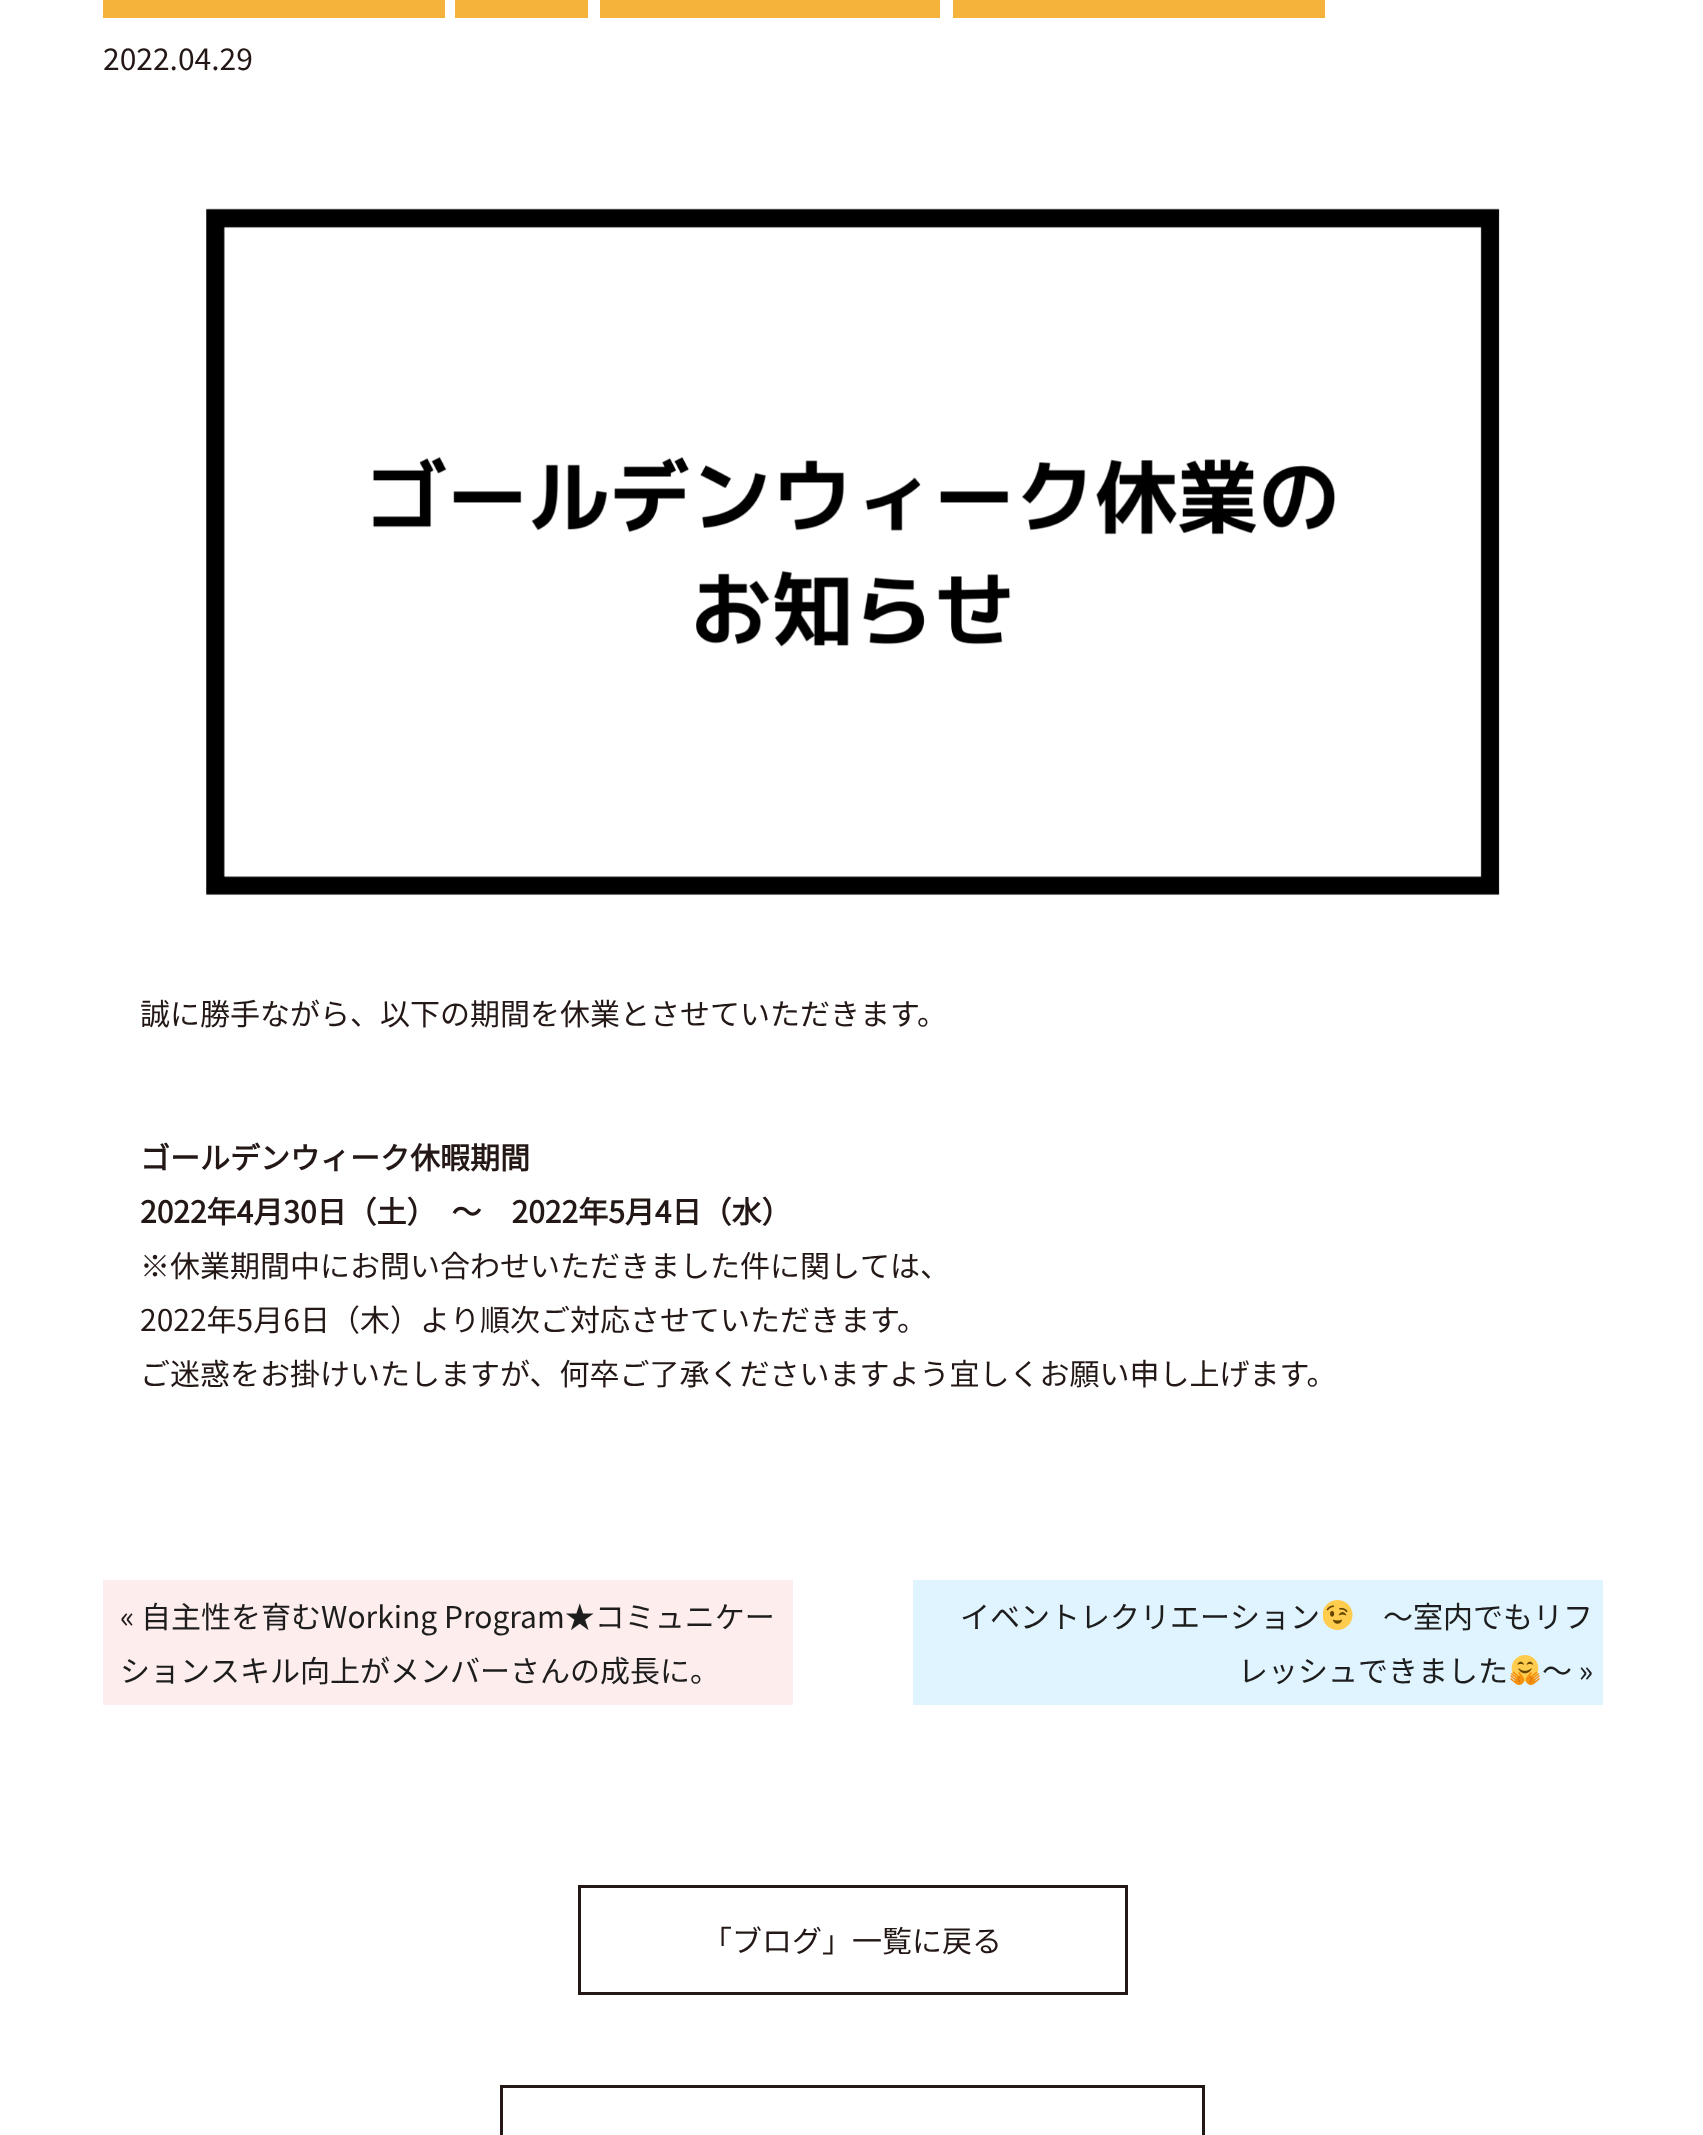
<!DOCTYPE html>
<meta charset="utf-8">
<style>body { margin: 0 } canvas { display: block }</style>
<canvas id="canvas" width="1703" height="2135"></canvas>
<img id="img1" src="images/1.png" hidden>
<img id="img2" src="images/2.png" hidden>
<img id="img3" src="images/3.png" hidden>
<script>
window.onload = function () {
    const canvas = document.getElementById('canvas');
    const context = canvas.getContext('2d');
    context.miterLimit = 4;
    context.fontKerning = 'normal';

    context.fillStyle = 'rgb(255, 255, 255)';
    context.fillRect(0, 0, 1703, 2135);
    context.fillStyle = 'rgb(245, 179, 59)';
    context.fillRect(103, 0, 342, 18);
    context.fillRect(455, 0, 133, 18);
    context.fillRect(600, 0, 340, 18);
    context.fillRect(953, 0, 372, 18);
    context.drawImage(document.getElementById('img1'), 206, 208, 1294, 688);
    context.fillStyle = 'rgb(254, 237, 237)';
    context.fillRect(103, 1580, 690, 125);
    context.fillStyle = 'rgb(224, 244, 255)';
    context.fillRect(913, 1580, 690, 125);
    context.drawImage(document.getElementById('img2'), 1323, 1600, 30, 30);
    context.drawImage(document.getElementById('img3'), 1510, 1655, 30, 30);
    context.strokeStyle = 'rgb(35, 24, 21)';
    context.lineWidth = 3;
    context.strokeRect(579.5, 1886.5, 547, 107);
    context.strokeRect(501.5, 2086.5, 702, 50);
    context.font = '100 30px Noto Sans JP';
    context.fillStyle = 'rgb(35, 24, 21)';
    context.fillText('2022.04.29', 103, 70);
    context.fillText('誠に勝手ながら、以下の期間を休業とさせていただきます。', 140, 1025);
    context.font = 'bold 30px Noto Sans JP';
    context.fillText('ゴールデンウィーク休暇期間', 140, 1169);
    context.fillText('2022年4月30日（土）　～　2022年5月4日（水）', 140, 1223);
    context.font = '100 30px Noto Sans JP';
    context.fillText('※休業期間中にお問い合わせいただきました件に関しては、', 140, 1277);
    context.fillText('2022年5月6日（木）より順次ご対応させていただきます。', 140, 1331);
    context.fillText('ご迷惑をお掛けいたしますが、何卒ご了承くださいますよう宜しくお願い申し上げます。', 140, 1385);
    context.fillStyle = 'rgb(29, 29, 29)';
    context.fillText('« 自主性を育むWorking Program★コミュニケー', 120, 1628);
    context.fillText('ションスキル向上がメンバーさんの成長に。', 120, 1682);
    context.fillText('イベントレクリエーション', 960, 1628);
    context.fillText('～室内でもリフ', 1383, 1628);
    context.fillText('レッシュできました', 1238, 1682);
    context.fillText('～ »', 1542, 1682);
    context.fillStyle = 'rgb(35, 24, 21)';
    context.fillText('「ブログ」一覧に戻る', 702, 1952);
};
</script>
